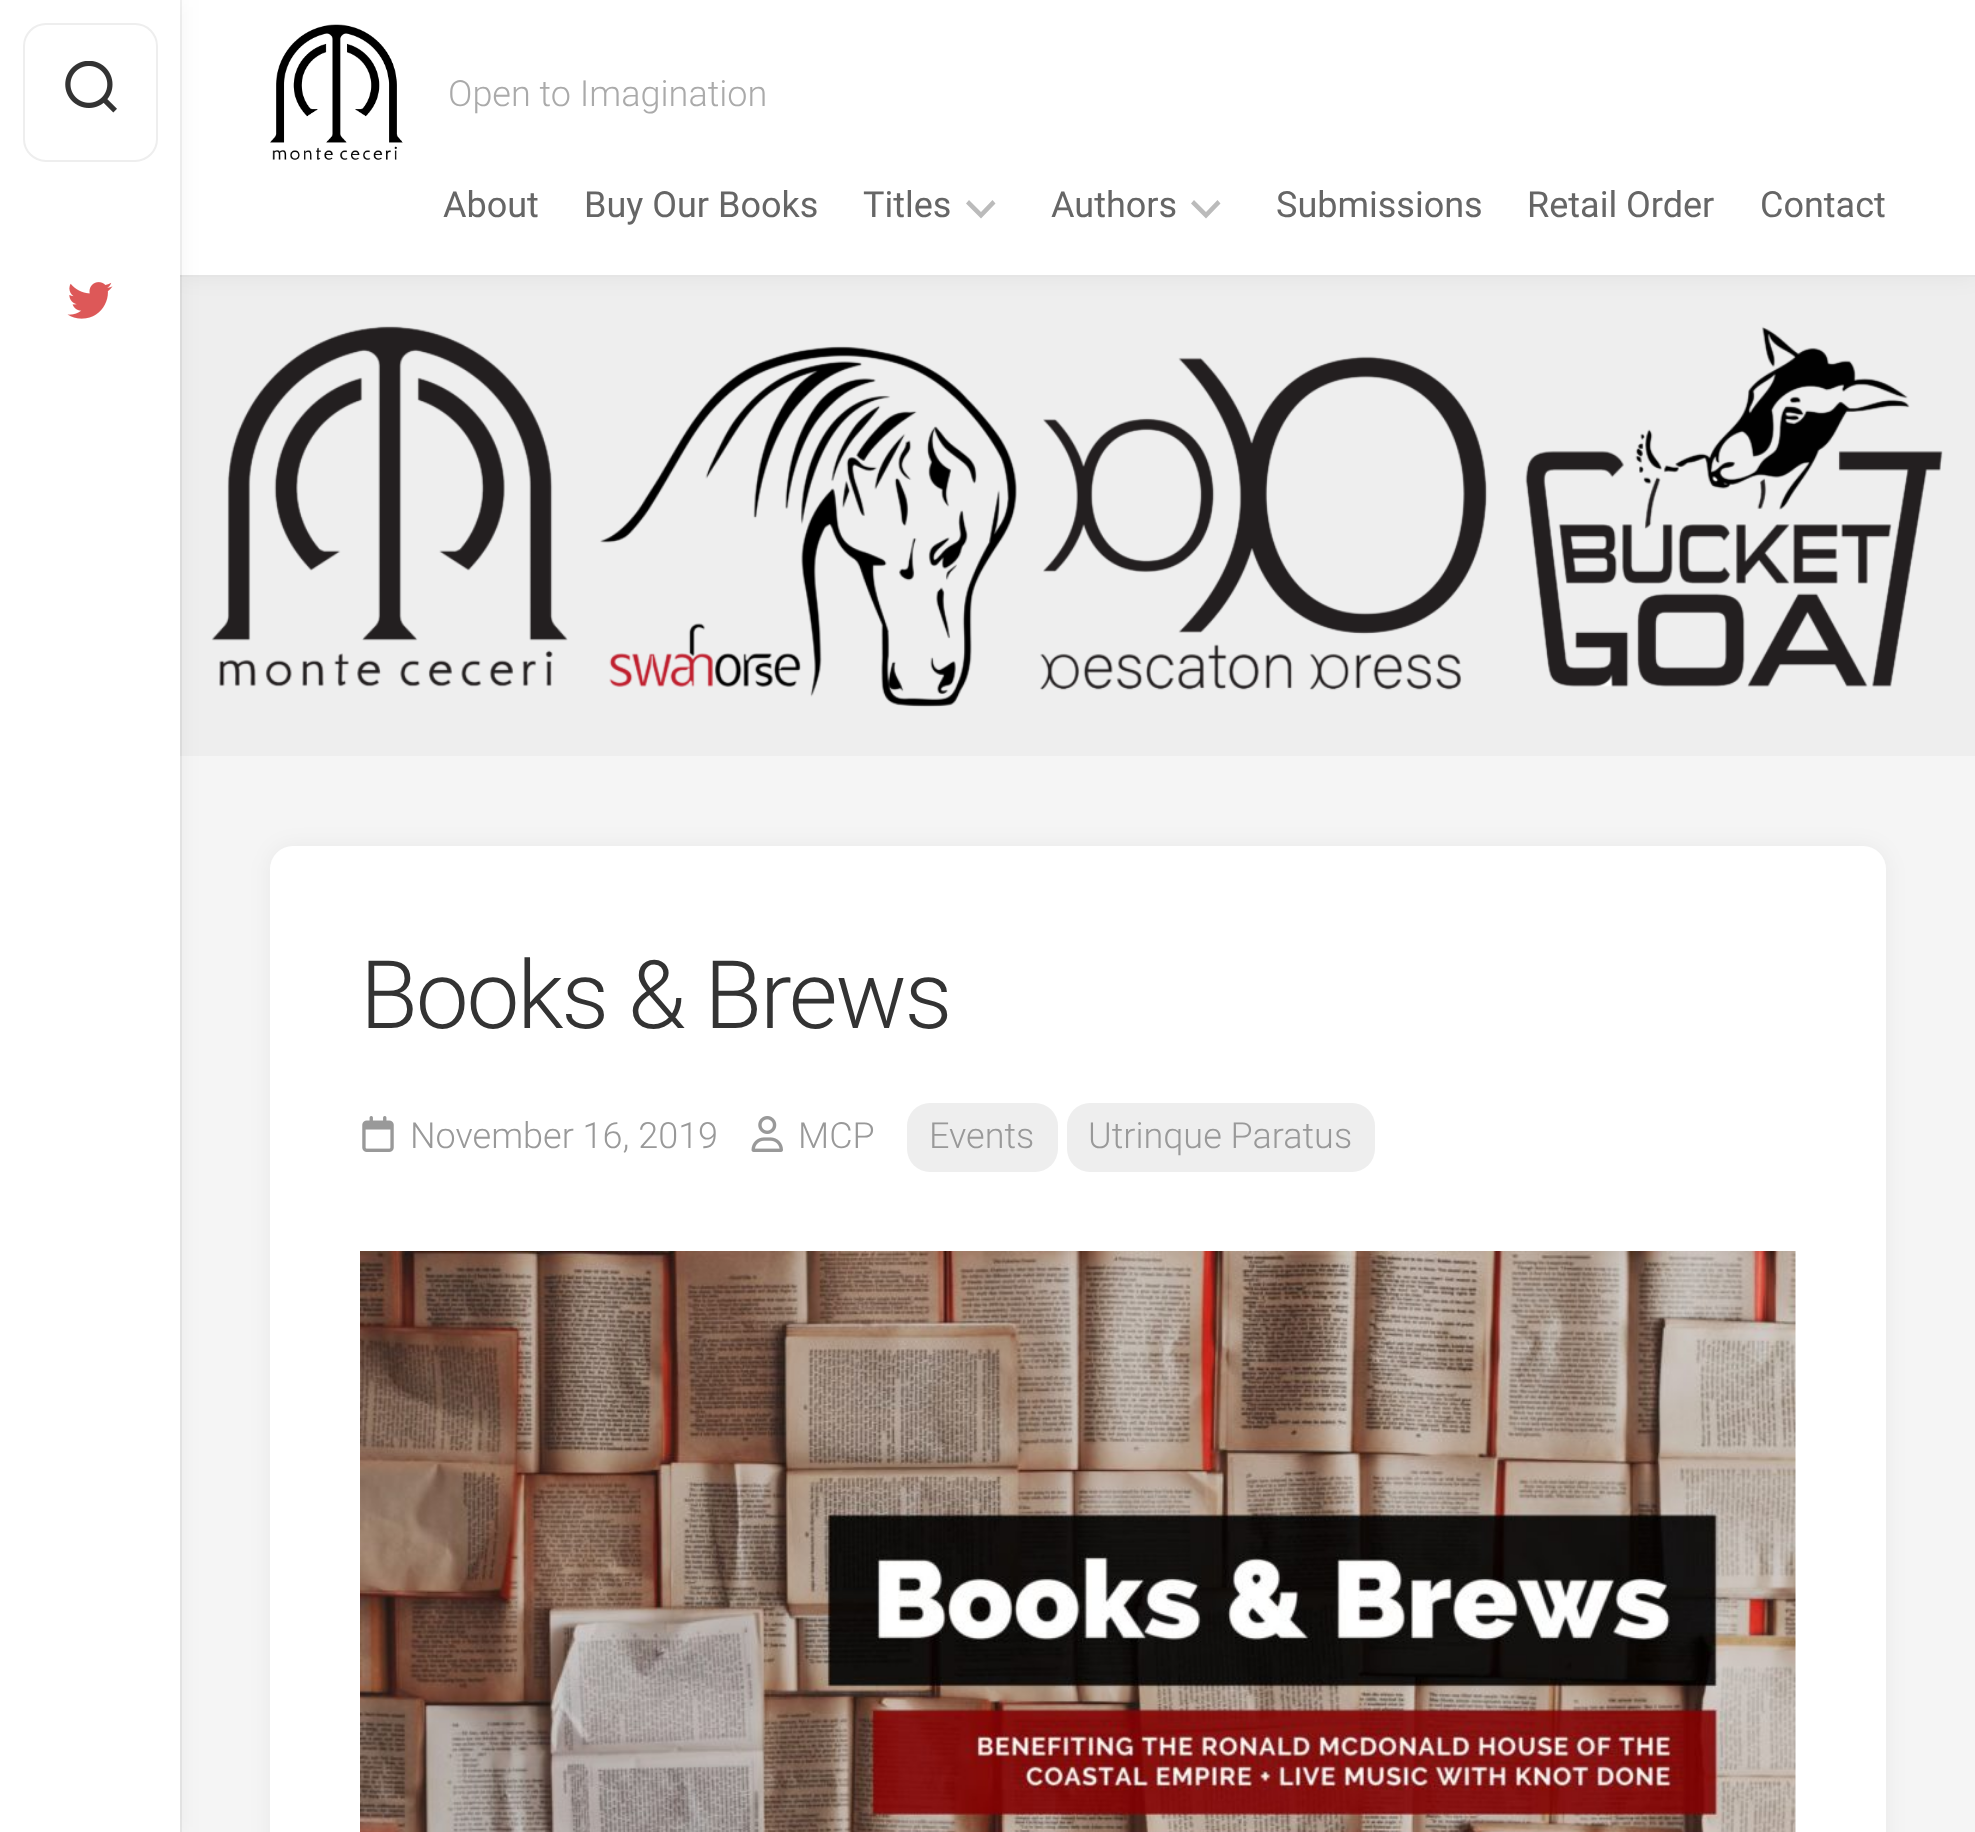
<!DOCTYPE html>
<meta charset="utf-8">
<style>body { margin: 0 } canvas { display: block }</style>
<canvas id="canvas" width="1975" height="1832"></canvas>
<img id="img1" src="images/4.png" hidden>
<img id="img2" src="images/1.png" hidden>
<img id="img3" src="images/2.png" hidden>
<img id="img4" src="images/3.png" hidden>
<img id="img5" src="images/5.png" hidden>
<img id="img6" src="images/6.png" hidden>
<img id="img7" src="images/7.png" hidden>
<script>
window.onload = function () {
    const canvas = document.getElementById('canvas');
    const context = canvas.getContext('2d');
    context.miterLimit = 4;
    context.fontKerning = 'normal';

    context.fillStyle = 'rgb(245, 245, 245)';
    context.fillRect(0, 0, 1975, 1832);
    context.fillStyle = 'rgb(255, 255, 255)';
    context.fillRect(180, 0, 1795, 2);
    context.fillStyle = 'rgb(238, 238, 238)';
    context.fillRect(180, 277, 1795, 479);
    context.save();
    context.beginPath();
    context.rect(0, 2, 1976, 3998);
    context.clip();
    context.fillStyle = 'rgba(0, 0, 0, 0.05)';
    context.filter = 'blur(11px)';
    context.beginPath();
    context.rect(180, 2, 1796, 275);
    context.fill();
    context.filter = 'none';
    context.restore();
    context.fillStyle = 'rgb(255, 255, 255)';
    context.fillRect(180, 2, 1795, 273);
    context.fillStyle = 'rgb(229, 229, 229)';
    context.fillRect(180, 275, 1795, 2);
    context.fillStyle = 'rgba(0, 0, 0, 0.05)';
    context.beginPath();
    context.moveTo(2, 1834);
    context.lineTo(182, 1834);
    context.lineTo(182, 0);
    context.lineTo(180, 0);
    context.lineTo(180, 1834);
    context.closePath();
    context.fill();
    context.drawImage(document.getElementById('img1'), 211, 326, 1732, 381);
    context.filter = 'blur(11px)';
    context.beginPath();
    context.rect(0, 0, 180, 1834);
    context.fill();
    context.filter = 'none';
    context.fillStyle = 'rgb(255, 255, 255)';
    context.fillRect(0, 0, 180, 1832);
    context.beginPath();
    context.roundRect(24, 24, 133, 137, 22);
    context.strokeStyle = 'rgb(238, 238, 238)';
    context.lineWidth = 2;
    context.stroke();
    context.drawImage(document.getElementById('img2'), 65, 61, 52, 52);
    context.drawImage(document.getElementById('img3'), 67, 282, 46, 37);
    context.drawImage(document.getElementById('img4'), 270, 24, 133, 136);
    context.fillStyle = 'rgb(187, 187, 187)';
    context.beginPath();
    context.moveTo(981, 212);
    context.lineTo(992.5, 200);
    context.lineTo(995.5, 203.5);
    context.lineTo(981, 218.5);
    context.lineTo(966, 203.5);
    context.lineTo(969, 200);
    context.closePath();
    context.fill('evenodd');
    context.beginPath();
    context.moveTo(1206, 212);
    context.lineTo(1217.5, 200);
    context.lineTo(1220.5, 203.5);
    context.lineTo(1206, 218.5);
    context.lineTo(1191, 203.5);
    context.lineTo(1194, 200);
    context.closePath();
    context.fill('evenodd');
    context.fillStyle = 'rgba(0, 0, 0, 0.05)';
    context.filter = 'blur(11px)';
    context.beginPath();
    context.roundRect(270, 846, 1616, 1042, 23);
    context.fill();
    context.filter = 'none';
    context.fillStyle = 'rgb(255, 255, 255)';
    context.beginPath();
    context.roundRect(270, 846, 1616, 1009, 23);
    context.fill();
    context.drawImage(document.getElementById('img5'), 362, 1116, 32, 36);
    context.drawImage(document.getElementById('img6'), 751, 1116, 32, 36);
    context.fillStyle = 'rgb(238, 238, 238)';
    context.beginPath();
    context.roundRect(907, 1103, 151, 69, 23);
    context.fill();
    context.beginPath();
    context.roundRect(1067, 1103, 308, 69, 23);
    context.fill();
    context.drawImage(document.getElementById('img7'), 360, 1251, 1436, 581);
    context.font = '300 36px Roboto';
    context.fillStyle = 'rgb(170, 170, 170)';
    context.fillText('Open to Imagination', 448, 106);
    context.font = '36px Roboto';
    context.fillStyle = 'rgb(102, 102, 102)';
    context.fillText('About', 443, 217);
    context.fillText('Buy Our Books', 584, 217);
    context.fillText('Titles', 863, 217);
    context.fillText('Authors', 1051, 217);
    context.fillText('Submissions', 1276, 217);
    context.fillText('Retail Order', 1527, 217);
    context.fillText('Contact', 1760, 217);
    context.letterSpacing = '-2.25px';
    context.font = '300 94.5px Roboto';
    context.fillStyle = 'rgb(51, 51, 51)';
    context.fillText('Books & Brews', 360, 1028);
    context.letterSpacing = '0px';
    context.font = '300 36px Roboto';
    context.fillStyle = 'rgb(153, 153, 153)';
    context.fillText('November 16, 2019', 410, 1148);
    context.fillText('MCP', 798, 1148);
    context.fillText('Events', 929, 1148);
    context.fillText('Utrinque Paratus', 1088, 1148);
};
</script>
